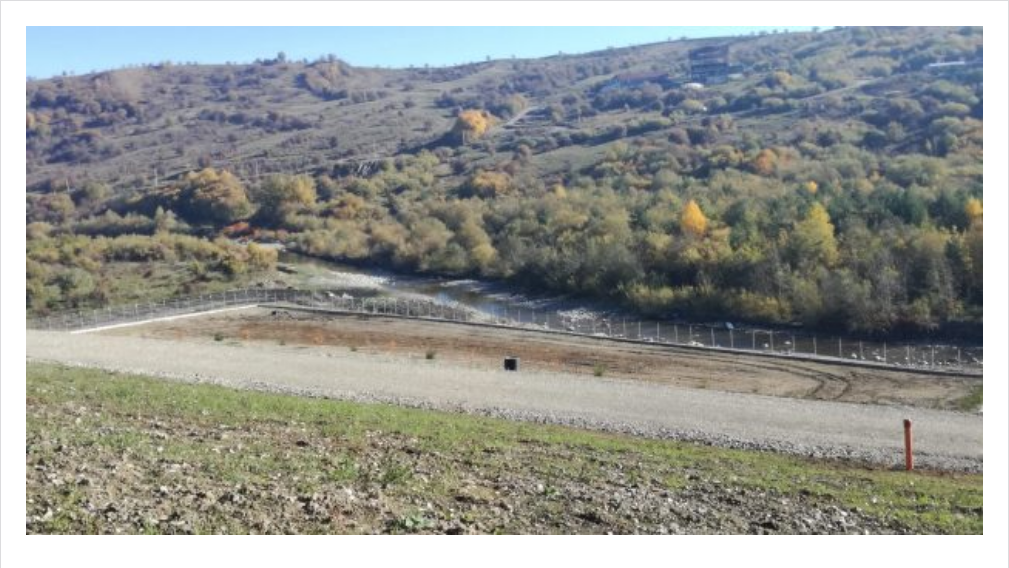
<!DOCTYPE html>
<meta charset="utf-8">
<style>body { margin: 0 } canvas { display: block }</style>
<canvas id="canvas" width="1009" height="568"></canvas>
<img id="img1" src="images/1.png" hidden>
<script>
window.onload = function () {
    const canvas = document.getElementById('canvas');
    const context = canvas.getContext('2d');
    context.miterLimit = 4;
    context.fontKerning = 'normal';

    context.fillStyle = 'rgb(255, 255, 255)';
    context.fillRect(0, 0, 1009, 568);
    context.strokeStyle = 'rgb(220, 220, 222)';
    context.strokeRect(0.5, 0.5, 1008, 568);
    context.drawImage(document.getElementById('img1'), 26, 26, 957, 509);
};
</script>
